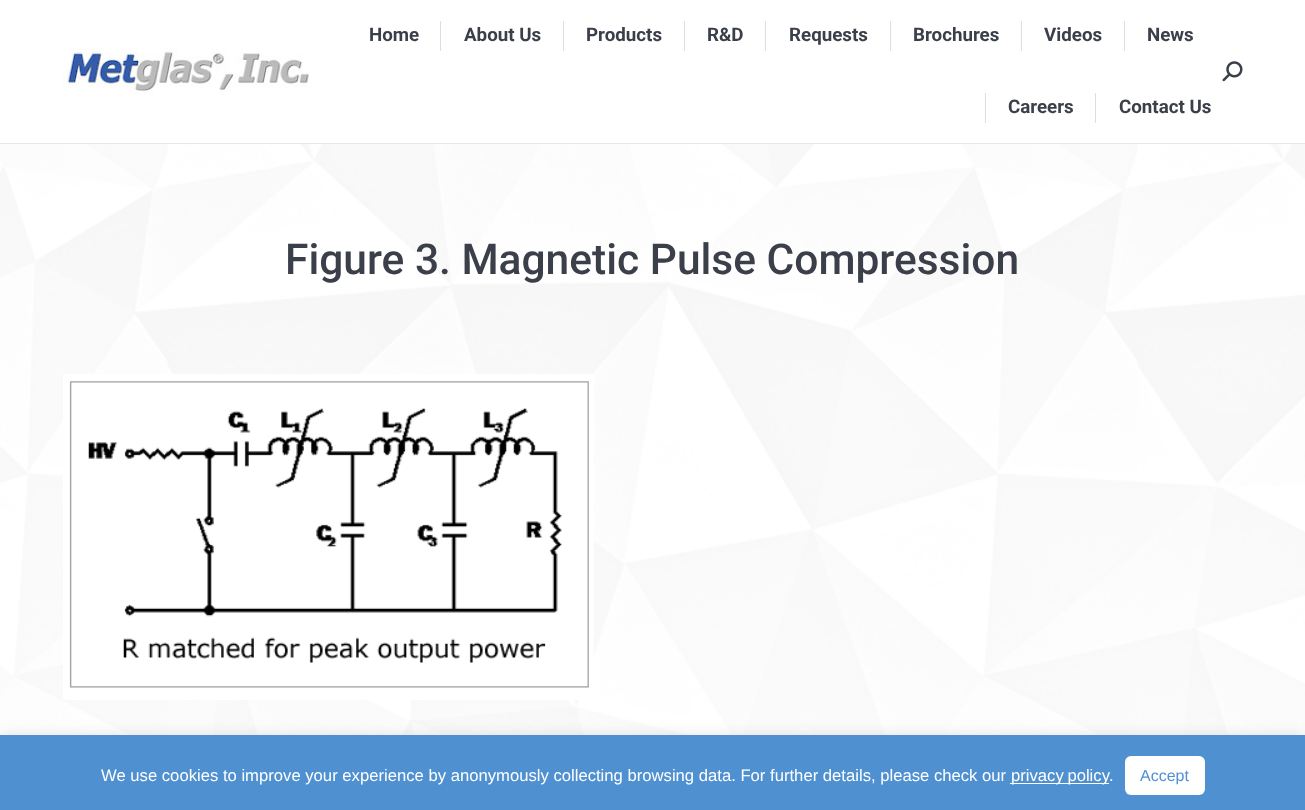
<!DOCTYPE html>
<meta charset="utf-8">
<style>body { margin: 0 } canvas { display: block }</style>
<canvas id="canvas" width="1305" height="810"></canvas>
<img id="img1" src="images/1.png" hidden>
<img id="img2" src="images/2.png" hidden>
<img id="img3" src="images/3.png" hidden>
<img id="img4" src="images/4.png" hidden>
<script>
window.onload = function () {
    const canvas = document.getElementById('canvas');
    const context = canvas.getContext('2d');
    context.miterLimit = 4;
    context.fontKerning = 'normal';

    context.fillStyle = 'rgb(255, 255, 255)';
    context.fillRect(0, 0, 1305, 810);
    context.fillStyle = 'rgb(230, 231, 233)';
    context.fillRect(0, 143, 1305, 1);
    context.drawImage(document.getElementById('img1'), 62, 48, 247, 47);
    context.fillStyle = 'rgb(222, 222, 222)';
    context.fillRect(440, 21, 1, 30);
    context.fillRect(563, 21, 1, 30);
    context.fillRect(684, 21, 1, 30);
    context.fillRect(765, 21, 1, 30);
    context.fillRect(890, 21, 1, 30);
    context.fillRect(1021, 21, 1, 30);
    context.fillRect(1124, 21, 1, 30);
    context.fillRect(985, 93, 1, 30);
    context.fillRect(1095, 93, 1, 30);
    context.drawImage(document.getElementById('img2'), 1222, 61, 21, 21);
    context.drawImage(document.getElementById('img3'), 0, 144, 1305, 591);
    context.drawImage(document.getElementById('img4'), 63, 374, 531, 326);
    context.fillStyle = 'rgba(172, 171, 171, 0.3)';
    context.filter = 'blur(6px)';
    context.beginPath();
    context.rect(0, 734, 1305, 75);
    context.fill();
    context.filter = 'none';
    context.fillStyle = 'rgb(79, 144, 209)';
    context.fillRect(0, 735, 1305, 75);
    context.fillStyle = 'rgb(255, 255, 255)';
    context.fillRect(1010, 783, 99, 1);
    context.beginPath();
    context.roundRect(1125, 756, 80, 39, 6);
    context.fill();
    context.font = 'bold 18.75px Roboto';
    context.fillStyle = 'rgb(59, 63, 74)';
    context.fillText('Home', 369, 41);
    context.fillText('About Us', 464, 41);
    context.fillText('Products', 586, 41);
    context.fillText('R&D', 707, 41);
    context.fillText('Requests', 789, 41);
    context.fillText('Brochures', 913, 41);
    context.fillText('Videos', 1044, 41);
    context.fillText('News', 1147, 41);
    context.fillText('Careers', 1008, 113);
    context.fillText('Contact Us', 1119, 113);
    context.font = '500 42.5px Roboto';
    context.fillText('Figure 3. Magnetic Pulse Compression', 285, 274);
    context.font = '16.67px Liberation Sans';
    context.fillStyle = 'rgb(255, 255, 255)';
    context.fillText('We use cookies to improve your experience by anonymously collecting browsing data. For further details, please check our', 101, 781);
    context.wordSpacing = '-1px';
    context.fillText('privacy policy', 1011, 781);
    context.wordSpacing = '0px';
    context.fillText('.', 1109, 781);
    context.font = '16px Liberation Sans';
    context.fillStyle = 'rgb(79, 144, 209)';
    context.fillText('Accept', 1140, 781);
};
</script>
